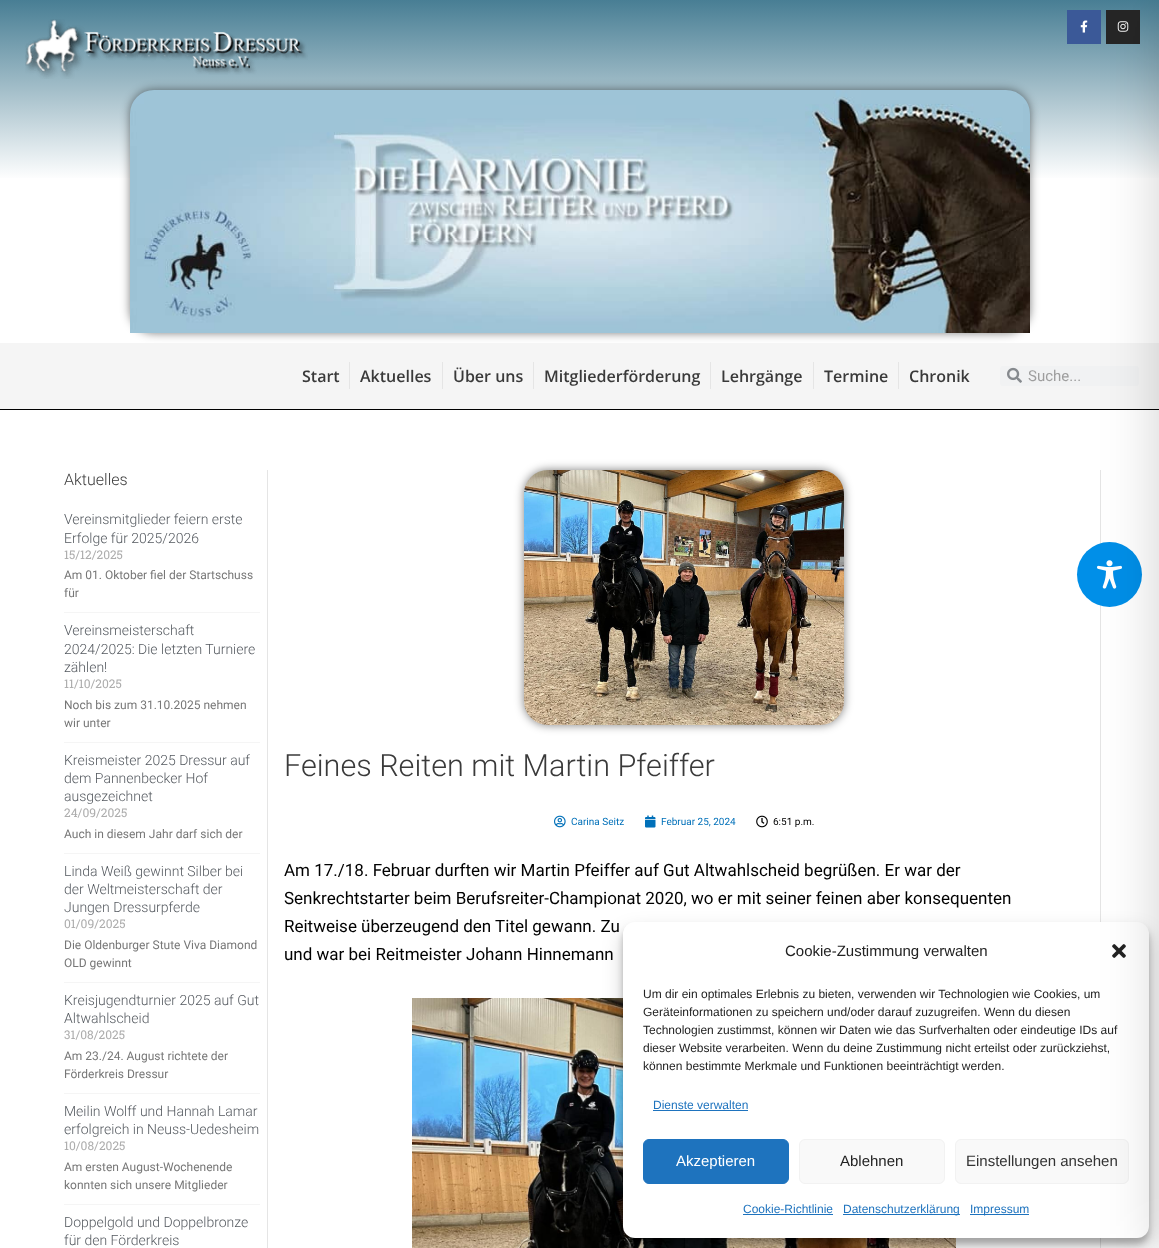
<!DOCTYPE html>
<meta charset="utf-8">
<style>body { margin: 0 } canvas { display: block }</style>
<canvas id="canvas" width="1159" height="1248"></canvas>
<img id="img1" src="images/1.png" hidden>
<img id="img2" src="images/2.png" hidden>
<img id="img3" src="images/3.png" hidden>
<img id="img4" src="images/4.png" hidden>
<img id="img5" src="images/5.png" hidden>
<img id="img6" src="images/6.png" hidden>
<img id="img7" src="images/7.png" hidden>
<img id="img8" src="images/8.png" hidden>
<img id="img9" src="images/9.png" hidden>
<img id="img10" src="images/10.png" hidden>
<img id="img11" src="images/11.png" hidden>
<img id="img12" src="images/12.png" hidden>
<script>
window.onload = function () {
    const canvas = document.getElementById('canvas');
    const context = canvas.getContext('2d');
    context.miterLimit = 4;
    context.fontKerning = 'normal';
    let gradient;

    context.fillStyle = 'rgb(255, 255, 255)';
    context.fillRect(0, 0, 1159, 1248);
    gradient = context.createLinearGradient(580, 0, 580, 180);
    gradient.addColorStop(0, 'rgb(72, 126, 148)');
    gradient.addColorStop(1, 'rgb(255, 255, 255)');
    context.fillStyle = gradient;
    context.fillRect(0, 0, 1159, 178);
    context.drawImage(document.getElementById('img1'), 25, 19, 283, 60);
    context.fillStyle = 'rgb(59, 89, 152)';
    context.fillRect(1067, 10, 34, 34);
    context.drawImage(document.getElementById('img2'), 1080, 20, 8, 13);
    context.fillStyle = 'rgb(38, 38, 38)';
    context.fillRect(1106, 10, 34, 34);
    context.drawImage(document.getElementById('img3'), 1117, 21, 12, 11);
    context.fillStyle = 'rgba(0, 0, 0, 0.5)';
    context.filter = 'blur(5px)';
    context.beginPath();
    context.roundRect(130, 90, 900, 243, 24);
    context.fill();
    context.filter = 'none';
    context.drawImage(document.getElementById('img4'), 130, 90, 900, 243);
    context.fillStyle = 'rgb(245, 245, 245)';
    context.fillRect(0, 343, 1159, 66);
    context.fillStyle = 'rgb(1, 1, 1)';
    context.fillRect(0, 409, 1159, 1);
    context.fillStyle = 'rgb(229, 229, 229)';
    context.fillRect(349, 362, 1, 27);
    context.fillRect(442, 362, 1, 27);
    context.fillRect(533, 362, 1, 27);
    context.fillRect(710, 362, 1, 27);
    context.fillRect(813, 362, 1, 27);
    context.fillRect(898, 362, 1, 27);
    context.fillStyle = 'rgb(241, 242, 243)';
    context.beginPath();
    context.roundRect(1000, 366, 139, 20, 3);
    context.fill();
    context.drawImage(document.getElementById('img5'), 1007, 367, 15, 16);
    context.fillStyle = 'rgb(245, 245, 245)';
    context.fillRect(64, 612, 196, 1);
    context.fillRect(64, 742, 196, 1);
    context.fillRect(64, 853, 196, 1);
    context.fillRect(64, 982, 196, 1);
    context.fillRect(64, 1093, 196, 1);
    context.fillRect(64, 1204, 196, 1);
    context.fillStyle = 'rgb(229, 229, 229)';
    context.fillRect(1100, 470, 1, 778);
    context.fillRect(267, 470, 1, 778);
    context.fillStyle = 'rgba(0, 0, 0, 0.5)';
    context.filter = 'blur(5px)';
    context.beginPath();
    context.roundRect(524, 470, 320, 255, 24);
    context.fill();
    context.filter = 'none';
    context.drawImage(document.getElementById('img6'), 524, 470, 320, 255);
    context.drawImage(document.getElementById('img7'), 554, 815, 12, 13);
    context.drawImage(document.getElementById('img8'), 645, 815, 11, 13);
    context.drawImage(document.getElementById('img9'), 756, 815, 12, 13);
    context.drawImage(document.getElementById('img10'), 412, 998, 544, 250);
    context.fillStyle = 'rgb(0, 143, 232)';
    context.beginPath();
    context.arc(1109.5, 574.5, 32.5, 0, 2 * Math.PI);
    context.fill();
    context.drawImage(document.getElementById('img11'), 1097, 560, 25, 29);
    context.fillStyle = 'rgba(0, 0, 0, 0.23)';
    context.filter = 'blur(3px)';
    context.beginPath();
    context.roundRect(623, 928, 526, 316, 12);
    context.fill();
    context.filter = 'none';
    context.fillStyle = 'rgba(0, 0, 0, 0.19)';
    context.filter = 'blur(10px)';
    context.beginPath();
    context.roundRect(623, 932, 526, 316, 12);
    context.fill();
    context.filter = 'none';
    context.fillStyle = 'rgb(255, 255, 255)';
    context.beginPath();
    context.roundRect(623, 922, 526, 316, 12);
    context.fill();
    context.drawImage(document.getElementById('img12'), 1112, 944, 14, 14);
    context.fillStyle = 'rgb(249, 249, 249)';
    context.beginPath();
    context.roundRect(955.5, 1139.5, 173, 44, 5.5);
    context.fill();
    context.strokeStyle = 'rgb(242, 242, 242)';
    context.stroke();
    context.fillStyle = 'rgba(0, 0, 0, 0.2)';
    context.filter = 'blur(30px)';
    context.beginPath();
    context.rect(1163, 10, 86, 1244);
    context.fill();
    context.filter = 'none';
    context.fillStyle = 'rgb(30, 115, 190)';
    context.fillRect(653, 1110, 95, 1);
    context.beginPath();
    context.roundRect(643.5, 1139.5, 145, 44, 5.5);
    context.fill();
    context.strokeStyle = 'rgb(30, 115, 190)';
    context.stroke();
    context.fillStyle = 'rgb(249, 249, 249)';
    context.beginPath();
    context.roundRect(799.5, 1139.5, 145, 44, 5.5);
    context.fill();
    context.strokeStyle = 'rgb(242, 242, 242)';
    context.stroke();
    context.fillStyle = 'rgb(30, 115, 190)';
    context.fillRect(743, 1214, 90, 1);
    context.fillRect(843, 1214, 117, 1);
    context.fillRect(970, 1214, 59, 1);
    context.font = '600 16px Open Sans';
    context.fillStyle = 'rgb(58, 58, 58)';
    context.fillText('Start', 302, 382);
    context.fillText('Aktuelles', 360, 382);
    context.fillText('Über uns', 453, 382);
    context.fillText('Mitgliederförderung', 544, 382);
    context.fillText('Lehrgänge', 721, 382);
    context.fillText('Termine', 824, 382);
    context.fillText('Chronik', 909, 382);
    context.font = '15px Roboto';
    context.fillStyle = 'rgb(158, 158, 158)';
    context.fillText('Suche...', 1028, 381);
    context.font = '300 16px Roboto';
    context.fillStyle = 'rgb(58, 58, 58)';
    context.fillText('Aktuelles', 64, 485);
    context.font = '300 14px Roboto';
    context.fillStyle = 'rgb(84, 89, 95)';
    context.fillText('Vereinsmitglieder feiern erste', 64, 524);
    context.fillText('Erfolge für 2025/2026', 64, 543);
    context.font = '12px Roboto Slab';
    context.fillStyle = 'rgb(173, 173, 173)';
    context.fillText('15/12/2025', 64, 559);
    context.font = '12px Roboto';
    context.fillStyle = 'rgb(119, 119, 119)';
    context.fillText('Am 01. Oktober fiel der Startschuss', 64, 579);
    context.fillText('für', 64, 597);
    context.font = '300 14px Roboto';
    context.fillStyle = 'rgb(84, 89, 95)';
    context.fillText('Vereinsmeisterschaft', 64, 635);
    context.fillText('2024/2025: Die letzten Turniere', 64, 654);
    context.fillText('zählen!', 64, 672);
    context.font = '12px Roboto Slab';
    context.fillStyle = 'rgb(173, 173, 173)';
    context.fillText('11/10/2025', 64, 688);
    context.font = '12px Roboto';
    context.fillStyle = 'rgb(119, 119, 119)';
    context.fillText('Noch bis zum 31.10.2025 nehmen', 64, 709);
    context.fillText('wir unter', 64, 727);
    context.font = '300 14px Roboto';
    context.fillStyle = 'rgb(84, 89, 95)';
    context.fillText('Kreismeister 2025 Dressur auf', 64, 765);
    context.fillText('dem Pannenbecker Hof', 64, 783);
    context.fillText('ausgezeichnet', 64, 801);
    context.font = '12px Roboto Slab';
    context.fillStyle = 'rgb(173, 173, 173)';
    context.fillText('24/09/2025', 64, 817);
    context.font = '12px Roboto';
    context.fillStyle = 'rgb(119, 119, 119)';
    context.fillText('Auch in diesem Jahr darf sich der', 64, 838);
    context.font = '300 14px Roboto';
    context.fillStyle = 'rgb(84, 89, 95)';
    context.fillText('Linda Weiß gewinnt Silber bei', 64, 876);
    context.fillText('der Weltmeisterschaft der', 64, 894);
    context.fillText('Jungen Dressurpferde', 64, 912);
    context.font = '12px Roboto Slab';
    context.fillStyle = 'rgb(173, 173, 173)';
    context.fillText('01/09/2025', 64, 928);
    context.font = '12px Roboto';
    context.fillStyle = 'rgb(119, 119, 119)';
    context.fillText('Die Oldenburger Stute Viva Diamond', 64, 949);
    context.fillText('OLD gewinnt', 64, 967);
    context.font = '300 14px Roboto';
    context.fillStyle = 'rgb(84, 89, 95)';
    context.fillText('Kreisjugendturnier 2025 auf Gut', 64, 1005);
    context.fillText('Altwahlscheid', 64, 1023);
    context.font = '12px Roboto Slab';
    context.fillStyle = 'rgb(173, 173, 173)';
    context.fillText('31/08/2025', 64, 1039);
    context.font = '12px Roboto';
    context.fillStyle = 'rgb(119, 119, 119)';
    context.fillText('Am 23./24. August richtete der', 64, 1060);
    context.fillText('Förderkreis Dressur', 64, 1078);
    context.font = '300 14px Roboto';
    context.fillStyle = 'rgb(84, 89, 95)';
    context.fillText('Meilin Wolff und Hannah Lamar', 64, 1116);
    context.fillText('erfolgreich in Neuss-Uedesheim', 64, 1134);
    context.font = '12px Roboto Slab';
    context.fillStyle = 'rgb(173, 173, 173)';
    context.fillText('10/08/2025', 64, 1150);
    context.font = '12px Roboto';
    context.fillStyle = 'rgb(119, 119, 119)';
    context.fillText('Am ersten August-Wochenende', 64, 1171);
    context.fillText('konnten sich unsere Mitglieder', 64, 1189);
    context.font = '300 14px Roboto';
    context.fillStyle = 'rgb(84, 89, 95)';
    context.fillText('Doppelgold und Doppelbronze', 64, 1227);
    context.fillText('für den Förderkreis', 64, 1245);
    context.font = '300 30.6px Roboto';
    context.fillStyle = 'rgb(58, 58, 58)';
    context.fillText('Feines Reiten mit Martin Pfeiffer', 284, 776);
    context.font = '10px Roboto';
    context.fillStyle = 'rgb(1, 112, 185)';
    context.fillText('Carina Seitz', 571, 825);
    context.fillText('Februar 25, 2024', 661, 825);
    context.fillStyle = 'rgb(1, 1, 1)';
    context.fillText('6:51 p.m.', 773, 825);
    context.font = '17px Roboto';
    context.fillText('Am 17./18. Februar durften wir Martin Pfeiffer auf Gut Altwahlscheid begrüßen. Er war der', 284, 876);
    context.fillText('Senkrechtstarter beim Berufsreiter-Championat 2020, wo er mit seiner feinen aber konsequenten', 284, 904);
    context.fillText('Reitweise überzeugend den Titel gewann. Zu', 284, 932);
    context.fillText('und war bei Reitmeister Johann Hinnemann', 284, 960);
    context.font = '15px Liberation Sans';
    context.fillStyle = 'rgb(34, 34, 34)';
    context.fillText('Cookie-Zustimmung verwalten', 785, 956);
    context.font = '12px Liberation Sans';
    context.fillText('Um dir ein optimales Erlebnis zu bieten, verwenden wir Technologien wie Cookies, um', 643, 998);
    context.fillText('Geräteinformationen zu speichern und/oder darauf zuzugreifen. Wenn du diesen', 643, 1016);
    context.fillText('Technologien zustimmst, können wir Daten wie das Surfverhalten oder eindeutige IDs auf', 643, 1034);
    context.fillText('dieser Website verarbeiten. Wenn du deine Zustimmung nicht erteilst oder zurückziehst,', 643, 1052);
    context.fillText('können bestimmte Merkmale und Funktionen beeinträchtigt werden.', 643, 1070);
    context.fillStyle = 'rgb(30, 115, 190)';
    context.fillText('Dienste verwalten', 653, 1109);
    context.font = '15px Liberation Sans';
    context.fillStyle = 'rgb(255, 255, 255)';
    context.fillText('Akzeptieren', 676, 1166);
    context.fillStyle = 'rgb(34, 34, 34)';
    context.fillText('Ablehnen', 840, 1166);
    context.fillStyle = 'rgb(51, 51, 51)';
    context.fillText('Einstellungen ansehen', 966, 1166);
    context.font = '12px Liberation Sans';
    context.fillStyle = 'rgb(30, 115, 190)';
    context.fillText('Cookie-Richtlinie', 743, 1213);
    context.fillText('Datenschutzerklärung', 843, 1213);
    context.fillText('Impressum', 970, 1213);
};
</script>
